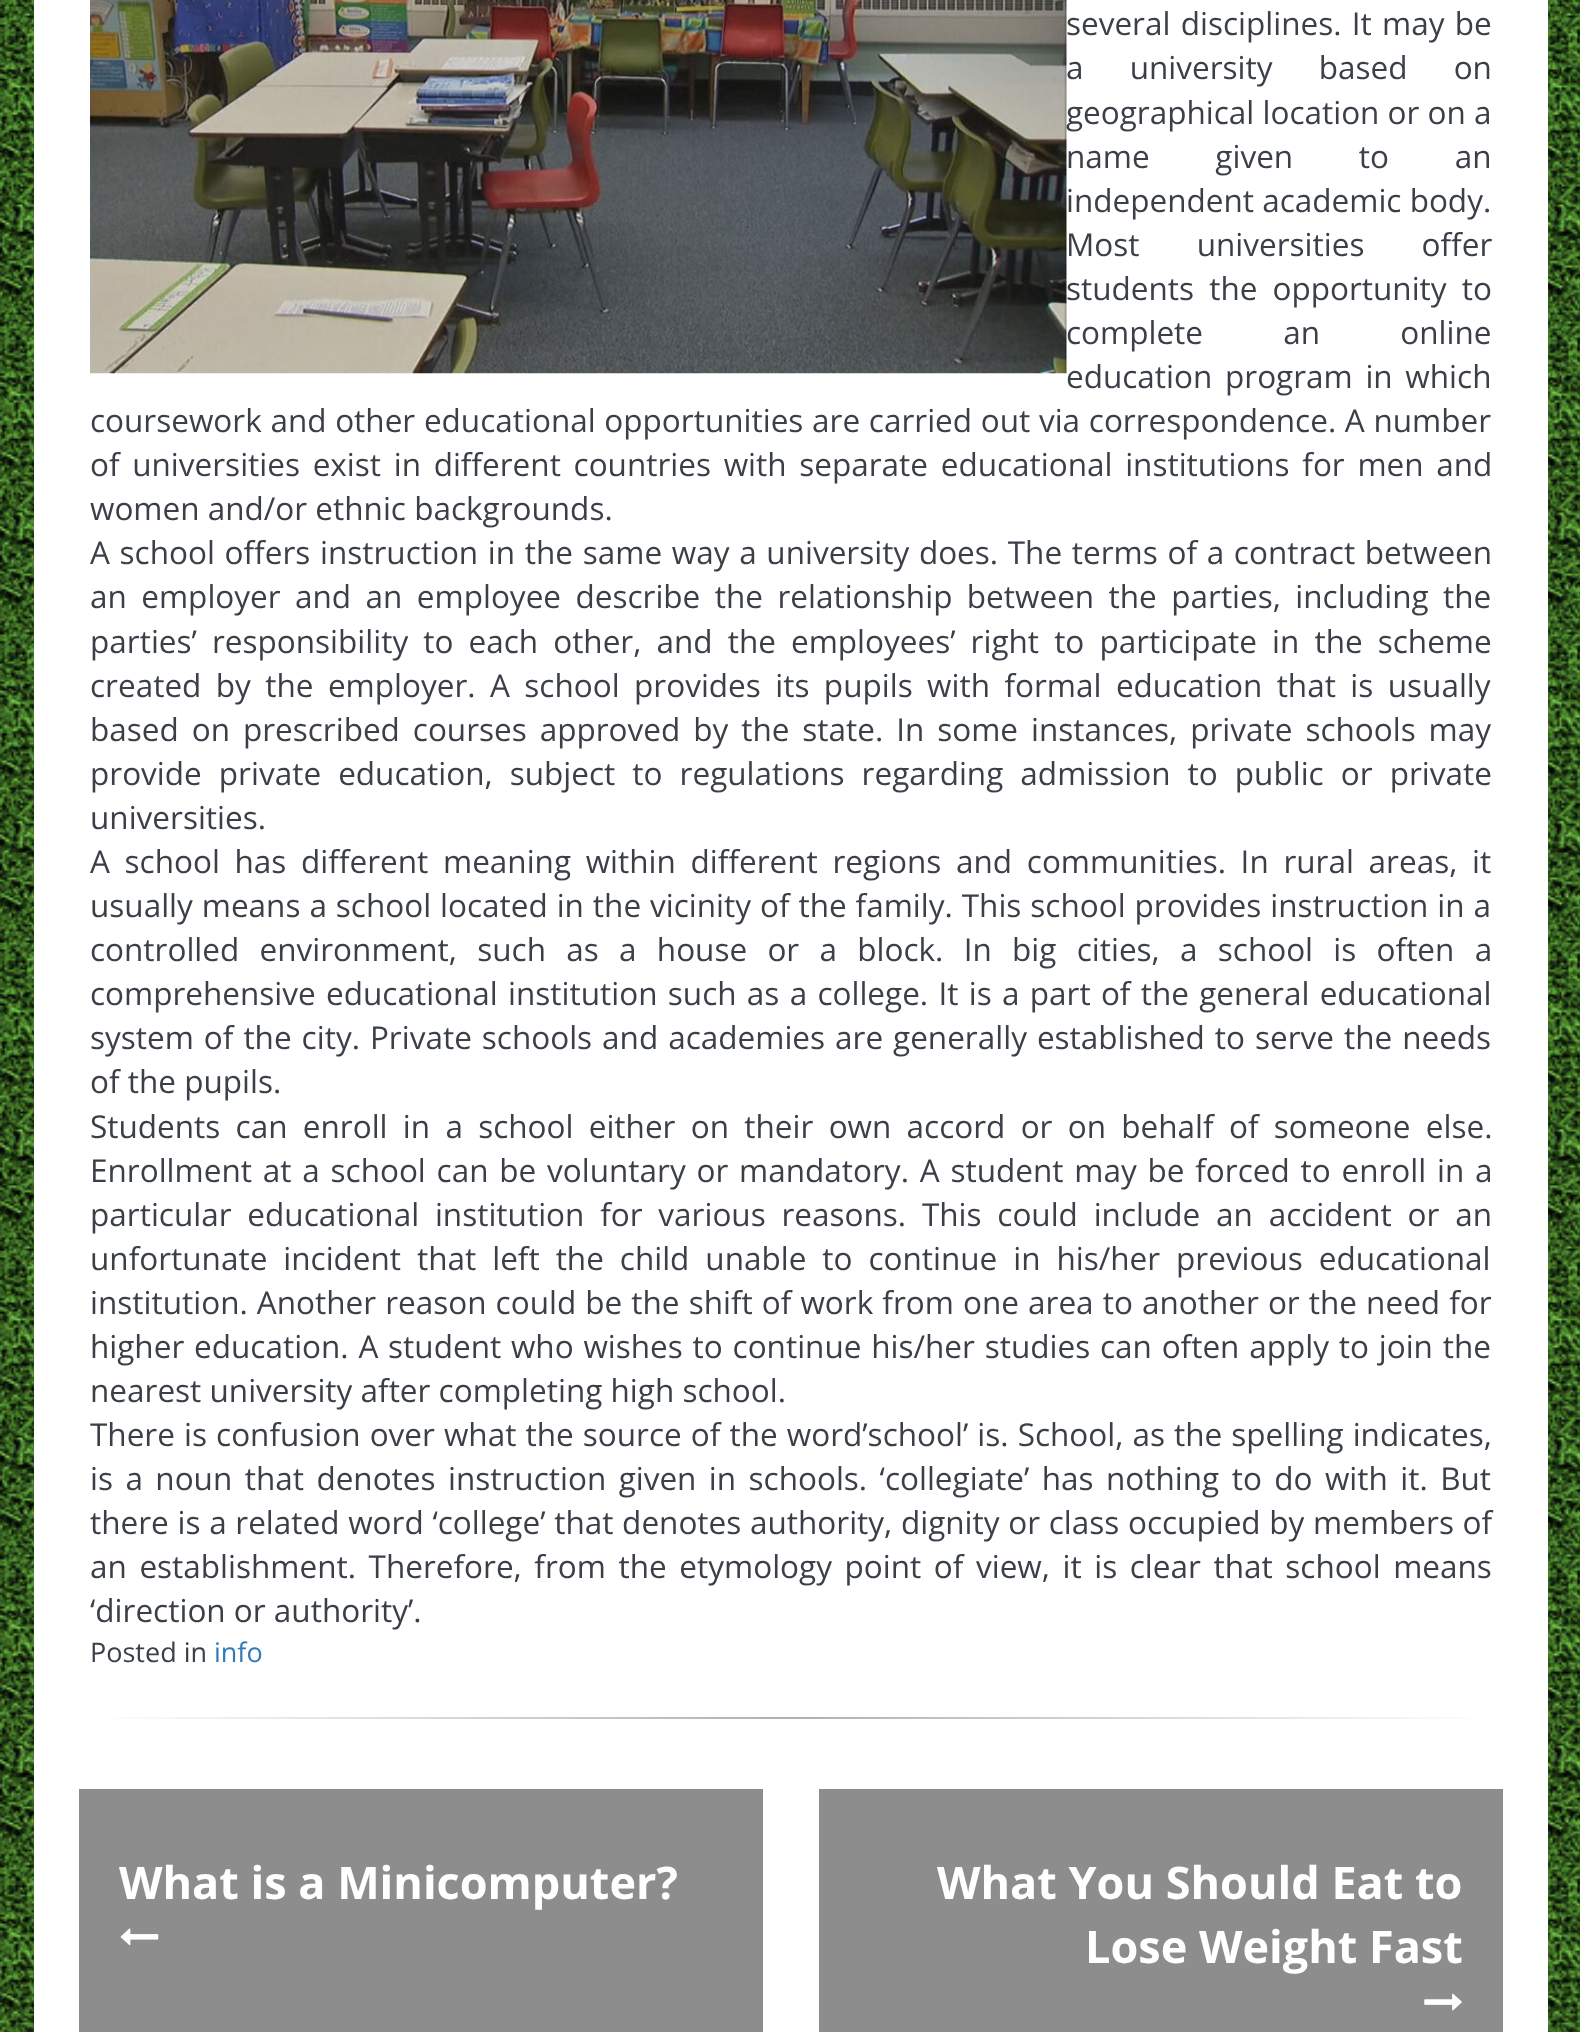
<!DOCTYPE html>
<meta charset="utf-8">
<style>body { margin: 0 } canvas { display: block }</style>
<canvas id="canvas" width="1580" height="2032"></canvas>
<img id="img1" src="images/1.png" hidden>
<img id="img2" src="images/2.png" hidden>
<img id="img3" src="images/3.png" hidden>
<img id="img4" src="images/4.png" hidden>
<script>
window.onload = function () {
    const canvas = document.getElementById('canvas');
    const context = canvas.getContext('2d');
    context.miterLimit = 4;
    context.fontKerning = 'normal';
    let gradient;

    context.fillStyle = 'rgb(255, 255, 255)';
    context.fillRect(0, 0, 1580, 2032);
    context.drawImage(document.getElementById('img1'), 0, 0, 1580, 2032);
    context.fillRect(34, 0, 1514, 2032);
    context.drawImage(document.getElementById('img2'), 90, 0, 977, 374);
    gradient = context.createLinearGradient(90, 1718, 1492, 1718);
    gradient.addColorStop(0, 'rgb(255, 255, 255)');
    gradient.addColorStop(0.5, 'rgb(176, 176, 176)');
    gradient.addColorStop(1, 'rgb(255, 255, 255)');
    context.fillStyle = gradient;
    context.fillRect(112, 1717, 1358, 2);
    context.fillStyle = 'rgb(141, 141, 141)';
    context.fillRect(79, 1789, 684, 243);
    context.drawImage(document.getElementById('img3'), 120, 1928, 39, 18);
    context.fillRect(819, 1789, 684, 243);
    context.drawImage(document.getElementById('img4'), 1424, 1993, 38, 18);
    context.wordSpacing = '2.1px';
    context.font = '31.5px Open Sans';
    context.fillStyle = 'rgb(58, 63, 72)';
    context.fillText('several disciplines. It may be', 1066, 35);
    context.wordSpacing = '38px';
    context.fillText('a university based on', 1066, 79);
    context.wordSpacing = '0px';
    context.fillText('geographical location or on a', 1066, 124);
    context.wordSpacing = '57.5px';
    context.fillText('name given to an', 1066, 168);
    context.wordSpacing = '0px';
    context.fillText('independent academic body.', 1066, 212);
    context.wordSpacing = '49px';
    context.fillText('Most universities offer', 1066, 256);
    context.wordSpacing = '6.9px';
    context.fillText('students the opportunity to', 1066, 300);
    context.wordSpacing = '72px';
    context.fillText('complete an online', 1066, 344);
    context.wordSpacing = '4.5px';
    context.fillText('education program in which', 1066, 388);
    context.wordSpacing = '0.5px';
    context.fillText('coursework and other educational opportunities are carried out via correspondence. A number', 90, 432);
    context.wordSpacing = '4.5px';
    context.fillText('of universities exist in different countries with separate educational institutions for men and', 90, 476);
    context.wordSpacing = '0px';
    context.fillText('women and/or ethnic backgrounds.', 90, 520);
    context.wordSpacing = '1.5px';
    context.fillText('A school offers instruction in the same way a university does. The terms of a contract between', 90, 564);
    context.wordSpacing = '6.25px';
    context.fillText('an employer and an employee describe the relationship between the parties, including the', 90, 608);
    context.wordSpacing = '6.9px';
    context.fillText('parties’ responsibility to each other, and the employees’ right to participate in the scheme', 90, 653);
    context.wordSpacing = '6.25px';
    context.fillText('created by the employer. A school provides its pupils with formal education that is usually', 90, 697);
    context.wordSpacing = '4.75px';
    context.fillText('based on prescribed courses approved by the state. In some instances, private schools may', 90, 741);
    context.wordSpacing = '8.9px';
    context.fillText('provide private education, subject to regulations regarding admission to public or private', 90, 785);
    context.wordSpacing = '0px';
    context.fillText('universities.', 90, 829);
    context.wordSpacing = '6.5px';
    context.fillText('A school has different meaning within different regions and communities. In rural areas, it', 90, 873);
    context.wordSpacing = '0.75px';
    context.fillText('usually means a school located in the vicinity of the family. This school provides instruction in a', 90, 917);
    context.wordSpacing = '12.1px';
    context.fillText('controlled environment, such as a house or a block. In big cities, a school is often a', 90, 961);
    context.wordSpacing = '2.1px';
    context.fillText('comprehensive educational institution such as a college. It is a part of the general educational', 90, 1005);
    context.wordSpacing = '1.8px';
    context.fillText('system of the city. Private schools and academies are generally established to serve the needs', 90, 1049);
    context.wordSpacing = '0px';
    context.fillText('of the pupils.', 90, 1093);
    context.wordSpacing = '7.1px';
    context.fillText('Students can enroll in a school either on their own accord or on behalf of someone else.', 90, 1138);
    context.wordSpacing = '2.6px';
    context.fillText('Enrollment at a school can be voluntary or mandatory. A student may be forced to enroll in a', 90, 1182);
    context.wordSpacing = '7.6px';
    context.fillText('particular educational institution for various reasons. This could include an accident or an', 90, 1226);
    context.wordSpacing = '7.75px';
    context.fillText('unfortunate incident that left the child unable to continue in his/her previous educational', 90, 1270);
    context.wordSpacing = '0.9px';
    context.fillText('institution. Another reason could be the shift of work from one area to another or the need for', 90, 1314);
    context.wordSpacing = '1.6px';
    context.fillText('higher education. A student who wishes to continue his/her studies can often apply to join the', 90, 1358);
    context.wordSpacing = '0px';
    context.fillText('nearest university after completing high school.', 90, 1402);
    context.wordSpacing = '0.9px';
    context.fillText('There is confusion over what the source of the word’school’ is. School, as the spelling indicates,', 90, 1446);
    context.wordSpacing = '4.25px';
    context.fillText('is a noun that denotes instruction given in schools. ‘collegiate’ has nothing to do with it. But', 90, 1490);
    context.wordSpacing = '0.5px';
    context.fillText('there is a related word ‘college’ that denotes authority, dignity or class occupied by members of', 90, 1534);
    context.wordSpacing = '4.4px';
    context.fillText('an establishment. Therefore, from the etymology point of view, it is clear that school means', 90, 1578);
    context.wordSpacing = '0px';
    context.fillText('‘direction or authority’.', 90, 1622);
    context.font = '27px Open Sans';
    context.fillText('Posted in', 90, 1662);
    context.fillStyle = 'rgb(51, 122, 183)';
    context.fillText('info', 214, 1662);
    context.font = 'bold 45px Open Sans';
    context.fillStyle = 'rgb(255, 255, 255)';
    context.fillText('What is a Minicomputer?', 119, 1899);
    context.fillText('What You Should Eat to', 937, 1899);
    context.fillText('Lose Weight Fast', 1085, 1963);
};
</script>
